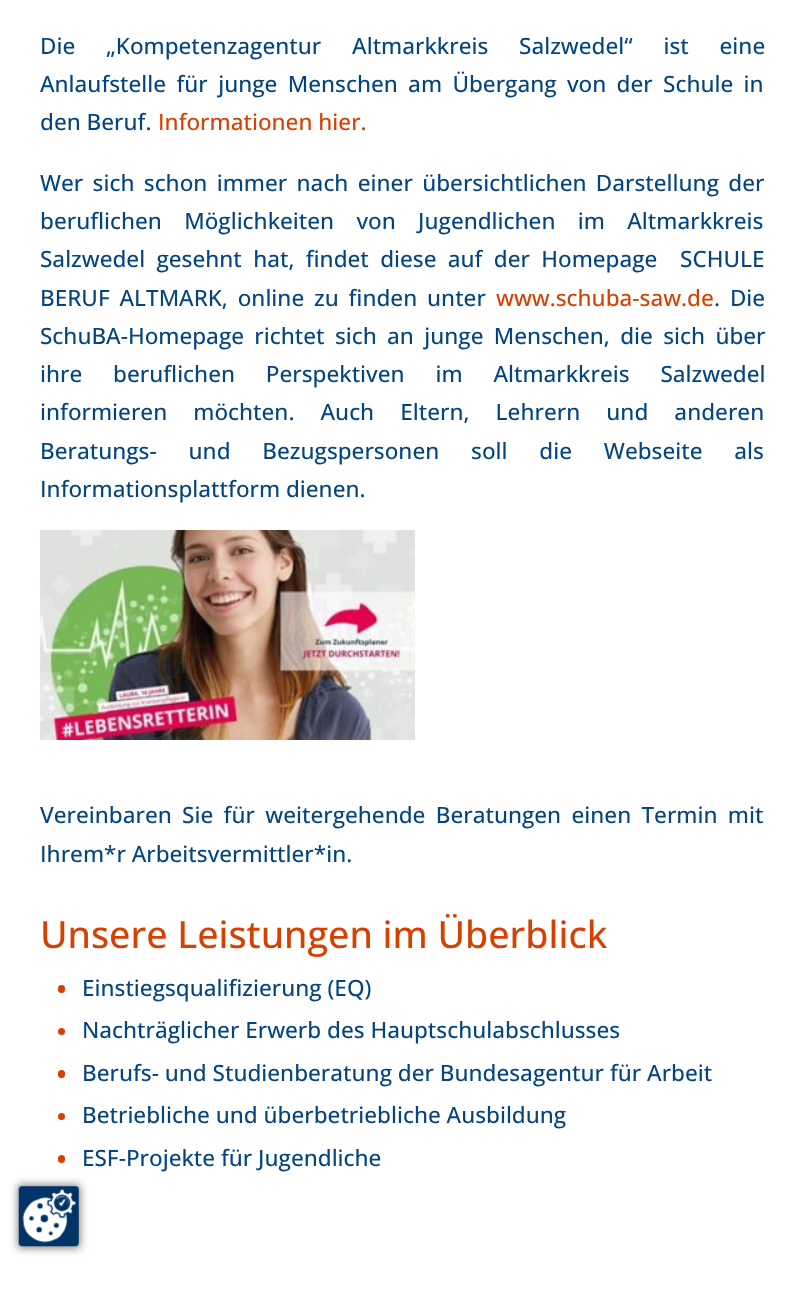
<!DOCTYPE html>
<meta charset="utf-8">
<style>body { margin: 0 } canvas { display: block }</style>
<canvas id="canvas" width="804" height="1296"></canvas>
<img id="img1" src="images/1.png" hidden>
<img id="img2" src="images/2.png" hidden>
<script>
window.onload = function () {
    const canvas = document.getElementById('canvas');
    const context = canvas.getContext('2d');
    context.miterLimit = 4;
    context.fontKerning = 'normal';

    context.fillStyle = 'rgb(255, 255, 255)';
    context.fillRect(0, 0, 804, 1296);
    context.drawImage(document.getElementById('img1'), 40, 530, 375, 210);
    context.fillStyle = 'rgb(214, 64, 0)';
    context.beginPath();
    context.roundRect(58, 985, 7, 8, 3.5);
    context.fill();
    context.beginPath();
    context.arc(61.5, 1031.5, 3.5, 0, 2 * Math.PI);
    context.fill();
    context.beginPath();
    context.roundRect(58, 1070, 7, 8, 3.5);
    context.fill();
    context.beginPath();
    context.arc(61.5, 1116.5, 3.5, 0, 2 * Math.PI);
    context.fill();
    context.beginPath();
    context.roundRect(58, 1155, 7, 8, 3.5);
    context.fill();
    context.fillStyle = 'rgba(0, 0, 0, 0.5)';
    context.filter = 'blur(4px)';
    context.beginPath();
    context.rect(18, 1185, 62, 63);
    context.fill();
    context.filter = 'none';
    context.drawImage(document.getElementById('img2'), 18, 1186, 61, 61);
    context.wordSpacing = '25px';
    context.font = '500 22.5px Open Sans';
    context.fillStyle = 'rgb(4, 68, 127)';
    context.fillText('Die „Kompetenzagentur Altmarkkreis Salzwedel“ ist eine', 40, 54);
    context.wordSpacing = '4.5px';
    context.fillText('Anlaufstelle für junge Menschen am Übergang von der Schule in', 40, 92);
    context.wordSpacing = '0px';
    context.fillText('den Beruf.', 40, 130);
    context.fillStyle = 'rgb(214, 64, 0)';
    context.fillText('Informationen hier.', 158, 130);
    context.wordSpacing = '3.5px';
    context.fillStyle = 'rgb(4, 68, 127)';
    context.fillText('Wer sich schon immer nach einer übersichtlichen Darstellung der', 40, 191);
    context.wordSpacing = '16.5px';
    context.fillText('beruflichen Möglichkeiten von Jugendlichen im Altmarkkreis', 40, 229);
    context.wordSpacing = '5.5px';
    context.fillText('Salzwedel gesehnt hat, findet diese auf der Homepage  SCHULE', 40, 267);
    context.wordSpacing = '4px';
    context.fillText('BERUF ALTMARK, online zu finden unter', 40, 306);
    context.wordSpacing = '0px';
    context.fillStyle = 'rgb(214, 64, 0)';
    context.fillText('www.schuba-saw.de', 496, 306);
    context.wordSpacing = '4px';
    context.fillStyle = 'rgb(4, 68, 127)';
    context.fillText('. Die', 714, 306);
    context.wordSpacing = '4.5px';
    context.fillText('SchuBA-Homepage richtet sich an junge Menschen, die sich über', 40, 344);
    context.wordSpacing = '25px';
    context.fillText('ihre beruflichen Perspektiven im Altmarkkreis Salzwedel', 40, 382);
    context.wordSpacing = '20.25px';
    context.fillText('informieren möchten. Auch Eltern, Lehrern und anderen', 40, 420);
    context.wordSpacing = '26px';
    context.fillText('Beratungs- und Bezugspersonen soll die Webseite als', 40, 459);
    context.wordSpacing = '0px';
    context.fillText('Informationsplattform dienen.', 40, 497);
    context.wordSpacing = '4.5px';
    context.fillText('Vereinbaren Sie für weitergehende Beratungen einen Termin mit', 40, 823);
    context.wordSpacing = '0px';
    context.fillText('Ihrem*r Arbeitsvermittler*in.', 40, 862);
    context.font = '500 37.5px Open Sans';
    context.fillStyle = 'rgb(214, 64, 0)';
    context.fillText('Unsere Leistungen im Überblick', 40, 948);
    context.font = '500 22.5px Open Sans';
    context.fillStyle = 'rgb(4, 68, 127)';
    context.fillText('Einstiegsqualifizierung (EQ)', 82, 996);
    context.fillText('Nachträglicher Erwerb des Hauptschulabschlusses', 82, 1038);
    context.fillText('Berufs- und Studienberatung der Bundesagentur für Arbeit', 82, 1081);
    context.fillText('Betriebliche und überbetriebliche Ausbildung', 82, 1123);
    context.fillText('ESF-Projekte für Jugendliche', 82, 1166);
};
</script>
